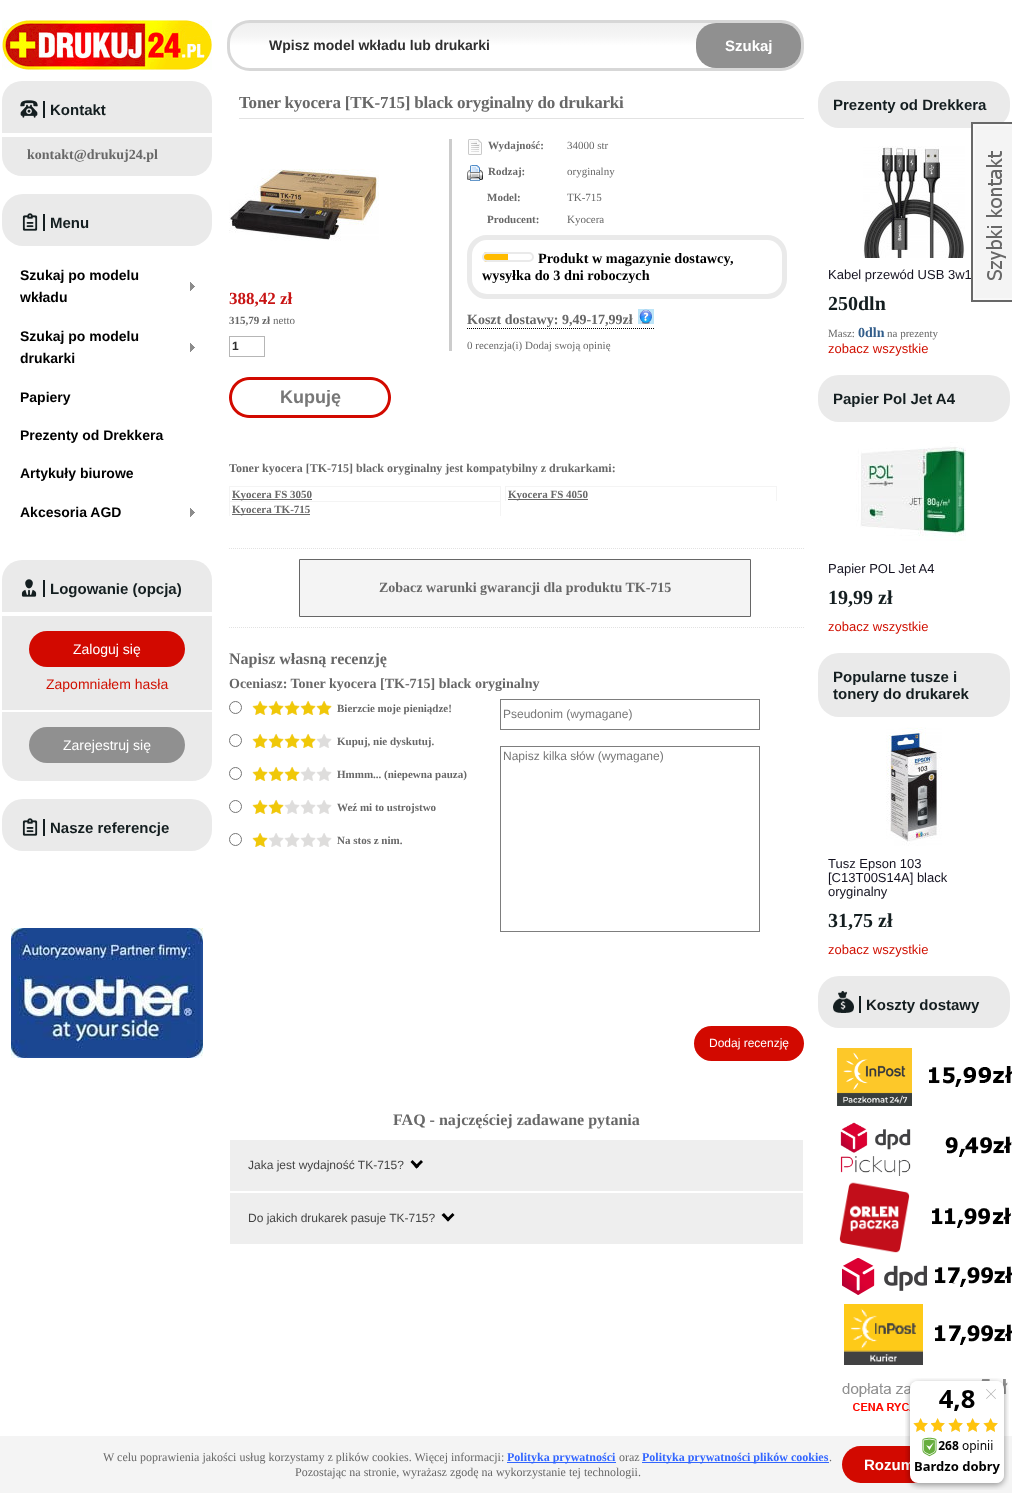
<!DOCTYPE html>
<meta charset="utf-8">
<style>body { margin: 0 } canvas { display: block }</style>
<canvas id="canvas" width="1012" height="1493"></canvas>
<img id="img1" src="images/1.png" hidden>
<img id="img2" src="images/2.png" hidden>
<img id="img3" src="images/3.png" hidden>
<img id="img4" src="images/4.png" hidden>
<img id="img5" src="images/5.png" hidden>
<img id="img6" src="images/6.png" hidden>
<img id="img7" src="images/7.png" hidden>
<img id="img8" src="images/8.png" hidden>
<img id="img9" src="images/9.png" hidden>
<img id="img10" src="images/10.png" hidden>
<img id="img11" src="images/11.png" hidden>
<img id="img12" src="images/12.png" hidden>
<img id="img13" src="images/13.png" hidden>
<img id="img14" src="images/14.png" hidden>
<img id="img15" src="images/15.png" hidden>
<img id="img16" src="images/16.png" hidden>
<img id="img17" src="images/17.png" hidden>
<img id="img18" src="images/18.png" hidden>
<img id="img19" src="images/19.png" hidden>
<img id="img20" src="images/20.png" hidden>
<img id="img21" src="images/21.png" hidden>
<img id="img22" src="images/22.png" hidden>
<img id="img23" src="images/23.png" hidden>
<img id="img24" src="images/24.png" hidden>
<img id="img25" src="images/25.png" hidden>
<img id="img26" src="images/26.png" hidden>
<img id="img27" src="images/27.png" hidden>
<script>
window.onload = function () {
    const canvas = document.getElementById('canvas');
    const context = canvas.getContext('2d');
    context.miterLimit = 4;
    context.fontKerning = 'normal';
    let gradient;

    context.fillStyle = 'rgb(255, 255, 255)';
    context.fillRect(0, 0, 1012, 1493);
    context.drawImage(document.getElementById('img1'), 2, 20, 210, 50);
    context.save();
    context.beginPath();
    context.roundRect(227, 20, 577, 51, 23);
    context.clip();
    gradient = context.createLinearGradient(230, 68, 230, 23);
    gradient.addColorStop(0.5, 'rgb(255, 255, 255)');
    gradient.addColorStop(0.71, 'rgb(245, 245, 245)');
    gradient.addColorStop(1, 'rgb(240, 240, 240)');
    context.fillStyle = gradient;
    context.fillRect(227, 23, 577, 45);
    context.restore();
    context.beginPath();
    context.roundRect(228.5, 21.5, 574, 48, 21.5);
    context.strokeStyle = 'rgb(215, 215, 215)';
    context.lineWidth = 3;
    context.stroke();
    context.fillStyle = 'rgb(144, 144, 144)';
    context.beginPath();
    context.roundRect(696, 23, 105, 45, 20);
    context.fill();
    context.fillStyle = 'rgb(234, 234, 234)';
    context.beginPath();
    context.roundRect(2, 81, 210, 52, [20, 20, 0, 0]);
    context.fill();
    context.drawImage(document.getElementById('img2'), 20, 100, 18, 18);
    context.fillStyle = 'rgb(20, 30, 32)';
    context.fillRect(43, 101, 2, 17);
    context.fillStyle = 'rgb(234, 234, 234)';
    context.beginPath();
    context.roundRect(2, 137, 210, 39, [0, 0, 20, 20]);
    context.fill();
    context.beginPath();
    context.roundRect(2, 194, 210, 52, 21);
    context.fill();
    context.drawImage(document.getElementById('img3'), 22, 213, 16, 18);
    context.fillStyle = 'rgb(20, 30, 32)';
    context.fillRect(43, 214, 2, 17);
    context.drawImage(document.getElementById('img4'), 190, 282, 5, 9);
    context.drawImage(document.getElementById('img4'), 190, 343, 5, 9);
    context.drawImage(document.getElementById('img4'), 190, 508, 5, 9);
    context.fillStyle = 'rgb(234, 234, 234)';
    context.beginPath();
    context.roundRect(2, 560, 210, 52, [20, 20, 0, 0]);
    context.fill();
    context.drawImage(document.getElementById('img5'), 21, 579, 16, 18);
    context.fillStyle = 'rgb(20, 30, 32)';
    context.fillRect(43, 580, 2, 17);
    context.fillStyle = 'rgb(234, 234, 234)';
    context.fillRect(2, 616, 210, 94);
    context.fillStyle = 'rgb(210, 9, 0)';
    context.beginPath();
    context.roundRect(29, 631, 156, 36, 18);
    context.fill();
    context.fillStyle = 'rgb(234, 234, 234)';
    context.beginPath();
    context.roundRect(2, 712, 210, 69, [0, 0, 20, 20]);
    context.fill();
    context.fillStyle = 'rgb(144, 144, 144)';
    context.beginPath();
    context.roundRect(29, 727, 156, 36, 18);
    context.fill();
    context.fillStyle = 'rgb(234, 234, 234)';
    context.beginPath();
    context.roundRect(2, 799, 210, 52, 21);
    context.fill();
    context.drawImage(document.getElementById('img3'), 22, 818, 16, 18);
    context.fillStyle = 'rgb(20, 30, 32)';
    context.fillRect(43, 819, 2, 17);
    context.drawImage(document.getElementById('img6'), 11, 928, 192, 130);
    context.fillStyle = 'rgb(226, 226, 226)';
    context.fillRect(239, 118, 565, 1);
    context.drawImage(document.getElementById('img7'), 229, 169, 150, 72);
    context.strokeStyle = 'rgb(182, 182, 182)';
    context.lineWidth = 1;
    context.strokeRect(229.5, 336.5, 35, 20);
    context.drawImage(document.getElementById('img8'), 229, 377, 162, 41);
    context.fillStyle = 'rgb(204, 204, 204)';
    context.fillRect(449, 139, 3, 212);
    context.drawImage(document.getElementById('img9'), 468, 139, 14, 16);
    context.drawImage(document.getElementById('img10'), 467, 165, 16, 16);
    context.beginPath();
    context.roundRect(469.5, 237.5, 315, 59, 17.5);
    context.strokeStyle = 'rgb(234, 234, 234)';
    context.lineWidth = 5;
    context.stroke();
    context.save();
    context.beginPath();
    context.roundRect(482, 252, 52, 10, 5);
    context.clip();
    context.fillStyle = 'rgb(255, 187, 0)';
    context.fillRect(484, 252, 24, 10);
    context.restore();
    context.beginPath();
    context.roundRect(483, 253, 50, 8, 4);
    context.lineWidth = 2;
    context.stroke();
    context.beginPath();
    context.moveTo(467, 328.5);
    context.lineTo(654, 328.5);
    context.strokeStyle = 'rgb(0, 0, 0)';
    context.lineWidth = 1;
    context.setLineDash([1, 1]);
    context.stroke();
    context.drawImage(document.getElementById('img11'), 638, 309, 16, 15);
    context.fillStyle = 'rgb(244, 244, 244)';
    context.fillRect(229, 486, 272, 1);
    context.fillRect(500, 486, 1, 15);
    context.fillRect(229, 486, 1, 15);
    context.fillStyle = 'rgb(104, 104, 104)';
    context.fillRect(232, 499, 80, 1);
    context.fillStyle = 'rgb(244, 244, 244)';
    context.fillRect(505, 486, 272, 1);
    context.fillRect(776, 486, 1, 15);
    context.fillRect(505, 486, 1, 15);
    context.fillStyle = 'rgb(104, 104, 104)';
    context.fillRect(508, 499, 80, 1);
    context.fillStyle = 'rgb(244, 244, 244)';
    context.fillRect(229, 501, 272, 1);
    context.fillRect(500, 501, 1, 15);
    context.fillRect(229, 501, 1, 15);
    context.fillStyle = 'rgb(104, 104, 104)';
    context.fillRect(232, 514, 78, 1);
    context.beginPath();
    context.moveTo(229, 548.5);
    context.lineTo(804, 548.5);
    context.strokeStyle = 'rgb(226, 226, 226)';
    context.stroke();
    context.beginPath();
    context.moveTo(229, 627.5);
    context.lineTo(804, 627.5);
    context.stroke();
    context.fillStyle = 'rgb(244, 244, 244)';
    context.beginPath();
    context.rect(299.5, 559.5, 451, 57);
    context.fill();
    context.strokeStyle = 'rgb(102, 102, 102)';
    context.setLineDash([]);
    context.stroke();
    context.beginPath();
    context.arc(235.5, 707.5, 6, 0, 2 * Math.PI);
    context.strokeStyle = 'rgb(118, 118, 118)';
    context.stroke();
    context.drawImage(document.getElementById('img12'), 252, 700, 80, 15);
    context.beginPath();
    context.arc(235.5, 740.5, 6, 0, 2 * Math.PI);
    context.stroke();
    context.drawImage(document.getElementById('img13'), 316, 734, 16, 14);
    context.drawImage(document.getElementById('img14'), 252, 733, 64, 15);
    context.beginPath();
    context.arc(235.5, 773.5, 6, 0, 2 * Math.PI);
    context.stroke();
    context.drawImage(document.getElementById('img15'), 300, 767, 32, 14);
    context.drawImage(document.getElementById('img16'), 252, 766, 48, 15);
    context.beginPath();
    context.arc(235.5, 806.5, 6, 0, 2 * Math.PI);
    context.stroke();
    context.drawImage(document.getElementById('img17'), 284, 800, 48, 14);
    context.drawImage(document.getElementById('img18'), 252, 799, 32, 15);
    context.beginPath();
    context.arc(235.5, 839.5, 6, 0, 2 * Math.PI);
    context.stroke();
    context.drawImage(document.getElementById('img19'), 268, 833, 64, 14);
    context.drawImage(document.getElementById('img20'), 252, 832, 16, 15);
    context.strokeStyle = 'rgb(125, 125, 125)';
    context.strokeRect(500.5, 699.5, 259, 30);
    context.strokeRect(500.5, 746.5, 259, 185);
    context.fillStyle = 'rgb(210, 9, 0)';
    context.beginPath();
    context.roundRect(694, 1026, 110, 35, 17.5);
    context.fill();
    context.fillStyle = 'rgb(238, 238, 238)';
    context.fillRect(230, 1140, 573, 51);
    context.fillStyle = 'rgb(0, 0, 0)';
    context.beginPath();
    context.moveTo(421, 1160);
    context.lineTo(423, 1162);
    context.lineTo(416.5, 1168.5);
    context.lineTo(414.5, 1166.5);
    context.closePath();
    context.fill();
    context.fillStyle = 'rgb(238, 238, 238)';
    context.fillRect(230, 1193, 573, 51);
    context.fillStyle = 'rgb(234, 234, 234)';
    context.beginPath();
    context.roundRect(818, 81, 192, 47, 21);
    context.fill();
    context.drawImage(document.getElementById('img21'), 863, 146, 102, 112);
    context.beginPath();
    context.roundRect(818, 375, 192, 47, 21);
    context.fill();
    context.drawImage(document.getElementById('img22'), 856, 442, 110, 99);
    context.beginPath();
    context.roundRect(818, 653, 192, 64, 21);
    context.fill();
    context.drawImage(document.getElementById('img23'), 886, 727, 56, 119);
    context.beginPath();
    context.roundRect(818, 976, 192, 52, 21);
    context.fill();
    context.drawImage(document.getElementById('img24'), 833, 991, 21, 22);
    context.fillStyle = 'rgb(20, 30, 32)';
    context.fillRect(859, 996, 2, 17);
    context.drawImage(document.getElementById('img25'), 837, 1048, 175, 363);
    context.fillStyle = 'rgb(244, 244, 244)';
    context.fillRect(0, 1436, 1012, 57);
    context.fillStyle = 'rgb(51, 102, 255)';
    context.fillRect(507, 1462, 109, 1);
    context.fillRect(642, 1462, 187, 1);
    context.fillStyle = 'rgb(210, 9, 0)';
    context.beginPath();
    context.roundRect(842, 1446, 120, 37, 18.5);
    context.fill();
    context.font = 'bold 14px Liberation Sans';
    context.fillStyle = 'rgb(47, 47, 47)';
    context.fillText('Wpisz model wkładu lub drukarki', 269, 50);
    context.font = 'bold 15px Liberation Sans';
    context.fillStyle = 'rgb(255, 255, 255)';
    context.fillText('Szukaj', 725, 51);
    context.fillStyle = 'rgb(20, 30, 32)';
    context.fillText('Kontakt', 50, 115);
    context.font = 'bold 14px Liberation Serif';
    context.fillStyle = 'rgb(104, 104, 104)';
    context.fillText('kontakt@drukuj24.pl', 27, 159);
    context.font = 'bold 15px Liberation Sans';
    context.fillStyle = 'rgb(20, 30, 32)';
    context.fillText('Menu', 50, 228);
    context.font = 'bold 14px Liberation Sans';
    context.fillStyle = 'rgb(0, 0, 0)';
    context.fillText('Szukaj po modelu', 20, 280);
    context.fillText('wkładu', 20, 302);
    context.fillText('Szukaj po modelu', 20, 341);
    context.fillText('drukarki', 20, 363);
    context.fillText('Papiery', 20, 402);
    context.fillText('Prezenty od Drekkera', 20, 440);
    context.fillText('Artykuły biurowe', 20, 478);
    context.fillText('Akcesoria AGD', 20, 517);
    context.font = 'bold 15px Liberation Sans';
    context.fillStyle = 'rgb(20, 30, 32)';
    context.fillText('Logowanie (opcja)', 50, 594);
    context.font = '14px Liberation Sans';
    context.fillStyle = 'rgb(255, 255, 255)';
    context.fillText('Zaloguj się', 73, 654);
    context.fillStyle = 'rgb(208, 16, 2)';
    context.fillText('Zapomniałem hasła', 46, 689);
    context.fillStyle = 'rgb(255, 255, 255)';
    context.fillText('Zarejestruj się', 63, 750);
    context.font = 'bold 15px Liberation Sans';
    context.fillStyle = 'rgb(20, 30, 32)';
    context.fillText('Nasze referencje', 50, 833);
    context.letterSpacing = '-0.2px';
    context.font = 'bold 17px Liberation Serif';
    context.fillStyle = 'rgb(104, 104, 104)';
    context.fillText('Toner kyocera [TK-715] black oryginalny do drukarki', 239, 108);
    context.letterSpacing = '0px';
    context.fillStyle = 'rgb(200, 20, 20)';
    context.fillText('388,42 zł', 229, 304);
    context.font = 'bold 11px Liberation Serif';
    context.fillStyle = 'rgb(104, 104, 104)';
    context.fillText('315,79 zł', 229, 324);
    context.font = '11px Liberation Serif';
    context.fillText('netto', 273, 324);
    context.font = 'bold 12px Liberation Sans';
    context.fillStyle = 'rgb(47, 47, 47)';
    context.fillText('1', 232, 350);
    context.font = 'bold 18px Liberation Sans';
    context.fillStyle = 'rgb(119, 119, 119)';
    context.fillText('Kupuję', 280, 403);
    context.font = 'bold 11px Liberation Serif';
    context.fillStyle = 'rgb(104, 104, 104)';
    context.fillText('Wydajność:', 488, 149);
    context.font = '11px Liberation Serif';
    context.fillText('34000 str', 567, 149);
    context.font = 'bold 11px Liberation Serif';
    context.fillText('Rodzaj:', 488, 175);
    context.font = '11px Liberation Serif';
    context.fillText('oryginalny', 567, 175);
    context.font = 'bold 11px Liberation Serif';
    context.fillText('Model:', 487, 201);
    context.font = '11px Liberation Serif';
    context.fillText('TK-715', 567, 201);
    context.font = 'bold 11px Liberation Serif';
    context.fillText('Producent:', 487, 223);
    context.font = '11px Liberation Serif';
    context.fillText('Kyocera', 567, 223);
    context.font = 'bold 14.25px Liberation Serif';
    context.fillStyle = 'rgb(0, 0, 0)';
    context.fillText('Produkt', 538, 263);
    context.fillText('w magazynie dostawcy', 592, 263);
    context.fillText(',', 730, 263);
    context.fillText('wysyłka do 3 dni roboczych', 482, 280);
    context.font = 'bold 14px Liberation Serif';
    context.fillStyle = 'rgb(104, 104, 104)';
    context.fillText('Koszt dostawy: 9,49-17,99zł', 467, 324);
    context.font = '11px Liberation Serif';
    context.fillText('0 recenzja(i) Dodaj swoją opinię', 467, 349);
    context.font = 'bold 12px Liberation Serif';
    context.fillText('Toner kyocera [TK-715] black oryginalny jest kompatybilny z drukarkami:', 229, 472);
    context.font = 'bold 11px Liberation Serif';
    context.fillText('Kyocera FS 3050', 232, 498);
    context.fillText('Kyocera FS 4050', 508, 498);
    context.fillText('Kyocera TK-715', 232, 513);
    context.font = 'bold 14px Liberation Serif';
    context.fillText('Zobacz warunki gwarancji dla produktu TK-715', 379, 592);
    context.font = 'bold 16px Liberation Serif';
    context.fillText('Napisz własną recenzję', 229, 664);
    context.font = 'bold 14px Liberation Serif';
    context.fillText('Oceniasz: Toner kyocera [TK-715] black oryginalny', 229, 688);
    context.font = 'bold 11px Liberation Serif';
    context.fillText('Bierzcie moje pieniądze!', 337, 712);
    context.fillText('Kupuj, nie dyskutuj.', 337, 745);
    context.fillText('Hmmm... (niepewna pauza)', 337, 778);
    context.fillText('Weź mi to ustrojstwo', 337, 811);
    context.fillText('Na stos z nim.', 337, 844);
    context.font = '12px Liberation Sans';
    context.fillStyle = 'rgb(119, 119, 119)';
    context.fillText('Pseudonim (wymagane)', 503, 718);
    context.fillText('Napisz kilka słów (wymagane)', 503, 760);
    context.fillStyle = 'rgb(255, 255, 255)';
    context.fillText('Dodaj recenzję', 709, 1047);
    context.font = 'bold 16px Liberation Serif';
    context.fillStyle = 'rgb(104, 104, 104)';
    context.fillText('FAQ - najczęściej zadawane pytania', 393, 1125);
    context.font = '12px Liberation Sans';
    context.fillStyle = 'rgb(68, 68, 68)';
    context.fillText('Jaka jest wydajność TK-715?', 248, 1169);
    context.fillText('Do jakich drukarek pasuje TK-715?', 248, 1222);
    context.fillStyle = 'rgb(0, 0, 0)';
    context.beginPath();
    context.moveTo(412.5, 1160);
    context.lineTo(419, 1166.5);
    context.lineTo(416.5, 1168.5);
    context.lineTo(410.5, 1162);
    context.closePath();
    context.moveTo(452.5, 1213);
    context.lineTo(454.5, 1215);
    context.lineTo(448, 1221.5);
    context.lineTo(446, 1219.5);
    context.closePath();
    context.fill();
    context.beginPath();
    context.moveTo(444, 1213);
    context.lineTo(450, 1219.5);
    context.lineTo(448, 1221.5);
    context.lineTo(441.5, 1215);
    context.closePath();
    context.fill();
    context.font = 'bold 15px Liberation Sans';
    context.fillStyle = 'rgb(20, 30, 32)';
    context.fillText('Prezenty od Drekkera', 833, 110);
    context.font = '13px Liberation Sans';
    context.fillStyle = 'rgb(20, 18, 32)';
    context.fillText('Kabel przewód USB 3w1', 828, 279);
    context.font = 'bold 20px Liberation Serif';
    context.fillStyle = 'rgb(20, 30, 32)';
    context.fillText('250dln', 828, 310);
    context.font = '11px Liberation Serif';
    context.fillStyle = 'rgb(104, 104, 104)';
    context.fillText('Masz:', 828, 337);
    context.font = 'bold 14px Liberation Serif';
    context.fillStyle = 'rgb(51, 94, 139)';
    context.fillText('0dln', 858, 337);
    context.font = '11px Liberation Serif';
    context.fillStyle = 'rgb(104, 104, 104)';
    context.fillText('na prezenty', 887, 337);
    context.font = '13px Liberation Sans';
    context.fillStyle = 'rgb(208, 16, 2)';
    context.fillText('zobacz wszystkie', 828, 353);
    context.font = 'bold 15px Liberation Sans';
    context.fillStyle = 'rgb(20, 30, 32)';
    context.fillText('Papier Pol Jet A4', 833, 404);
    context.font = '13px Liberation Sans';
    context.fillStyle = 'rgb(20, 18, 32)';
    context.fillText('Papier POL Jet A4', 828, 573);
    context.font = 'bold 20px Liberation Serif';
    context.fillStyle = 'rgb(20, 30, 32)';
    context.fillText('19,99 zł', 828, 604);
    context.font = '13px Liberation Sans';
    context.fillStyle = 'rgb(208, 16, 2)';
    context.fillText('zobacz wszystkie', 828, 631);
    context.font = 'bold 15px Liberation Sans';
    context.fillStyle = 'rgb(20, 30, 32)';
    context.fillText('Popularne tusze i', 833, 682);
    context.fillText('tonery do drukarek', 833, 699);
    context.font = '13px Liberation Sans';
    context.fillStyle = 'rgb(20, 18, 32)';
    context.fillText('Tusz Epson 103', 828, 868);
    context.fillText('[C13T00S14A] black', 828, 882);
    context.fillText('oryginalny', 828, 896);
    context.font = 'bold 20px Liberation Serif';
    context.fillStyle = 'rgb(20, 30, 32)';
    context.fillText('31,75 zł', 828, 927);
    context.font = '13px Liberation Sans';
    context.fillStyle = 'rgb(208, 16, 2)';
    context.fillText('zobacz wszystkie', 828, 954);
    context.font = 'bold 15px Liberation Sans';
    context.fillStyle = 'rgb(20, 30, 32)';
    context.fillText('Koszty dostawy', 866, 1010);
    context.font = '12px Liberation Serif';
    context.fillStyle = 'rgb(104, 104, 104)';
    context.fillText('W celu poprawienia jakości usług korzystamy z plików cookies. Więcej informacji:', 103, 1461);
    context.font = 'bold 12px Liberation Serif';
    context.fillStyle = 'rgb(51, 102, 255)';
    context.fillText('Polityka prywatności', 507, 1461);
    context.font = '12px Liberation Serif';
    context.fillStyle = 'rgb(104, 104, 104)';
    context.fillText('oraz', 619, 1461);
    context.font = 'bold 12px Liberation Serif';
    context.fillStyle = 'rgb(51, 102, 255)';
    context.fillText('Polityka prywatności plików cookies', 642, 1461);
    context.font = '12px Liberation Serif';
    context.fillStyle = 'rgb(104, 104, 104)';
    context.fillText('.', 829, 1461);
    context.fillText('Pozostając na stronie, wyrażasz zgodę na wykorzystanie tej technologii.', 295, 1476);
    context.font = 'bold 15px Liberation Sans';
    context.fillStyle = 'rgb(255, 255, 255)';
    context.fillText('Rozum', 864, 1470);
    context.drawImage(document.getElementById('img26'), 971, 122, 41, 180);
    context.drawImage(document.getElementById('img27'), 905, 1378, 104, 112);
};
</script>
